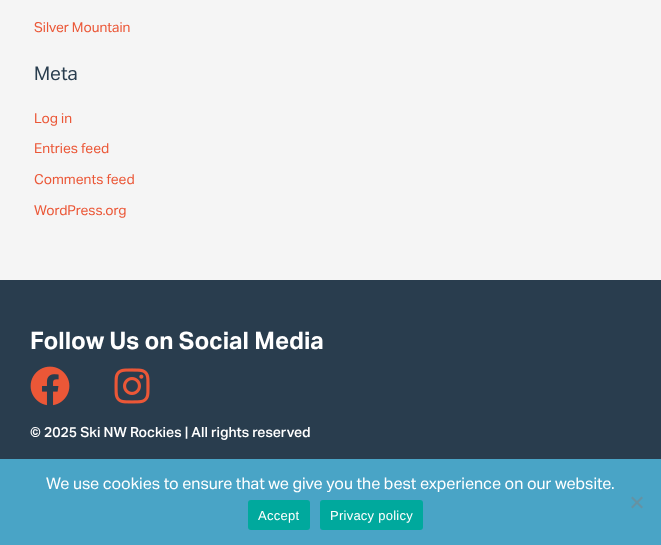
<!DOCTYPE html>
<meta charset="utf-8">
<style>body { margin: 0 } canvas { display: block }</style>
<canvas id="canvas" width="661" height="545"></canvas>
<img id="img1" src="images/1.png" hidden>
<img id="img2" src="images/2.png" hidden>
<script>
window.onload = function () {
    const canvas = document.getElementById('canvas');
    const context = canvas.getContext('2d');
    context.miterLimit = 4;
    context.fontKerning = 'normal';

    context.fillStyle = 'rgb(245, 245, 245)';
    context.fillRect(0, 0, 661, 545);
    context.fillStyle = 'rgb(41, 61, 78)';
    context.fillRect(0, 280, 661, 179);
    context.drawImage(document.getElementById('img1'), 30, 366, 40, 40);
    context.drawImage(document.getElementById('img2'), 114, 368, 36, 36);
    context.fillStyle = 'rgb(73, 164, 198)';
    context.fillRect(0, 459, 661, 86);
    context.fillStyle = 'rgb(101, 146, 163)';
    context.beginPath();
    context.moveTo(641.5, 496.5);
    context.lineTo(643, 498);
    context.lineTo(632.5, 508.5);
    context.lineTo(631, 507);
    context.closePath();
    context.fill();
    context.beginPath();
    context.moveTo(631, 498);
    context.lineTo(632.5, 496.5);
    context.lineTo(643, 507);
    context.lineTo(641.5, 508.5);
    context.closePath();
    context.fill();
    context.fillStyle = 'rgb(0, 169, 157)';
    context.beginPath();
    context.roundRect(248, 500, 62, 30, 3);
    context.fill();
    context.beginPath();
    context.roundRect(320, 500, 103, 30, 3);
    context.fill();
    context.font = '13.75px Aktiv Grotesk';
    context.fillStyle = 'rgb(235, 87, 55)';
    context.fillText('Silver Mountain', 34, 32);
    context.font = '19px Aktiv Grotesk';
    context.fillStyle = 'rgb(41, 61, 78)';
    context.fillText('Meta', 34, 80);
    context.font = '13.75px Aktiv Grotesk';
    context.fillStyle = 'rgb(235, 87, 55)';
    context.fillText('Log in', 34, 123);
    context.fillText('Entries feed', 34, 153);
    context.fillText('Comments feed', 34, 184);
    context.fillText('WordPress.org', 34, 215);
    context.font = 'bold 24px Aktiv Grotesk';
    context.fillStyle = 'rgb(255, 255, 255)';
    context.fillText('Follow Us on Social Media', 30, 349);
    context.font = '500 14px Aktiv Grotesk';
    context.fillText('© 2025 Ski NW Rockies | All rights reserved', 30, 437);
    context.font = '16px Aktiv Grotesk';
    context.fillText('We use cookies to ensure that we give you the best experience on our website.', 46, 489);
    context.letterSpacing = '0.25px';
    context.font = '13px Liberation Sans';
    context.fillText('Accept', 258, 520);
    context.fillText('Privacy policy', 330, 520);
};
</script>
